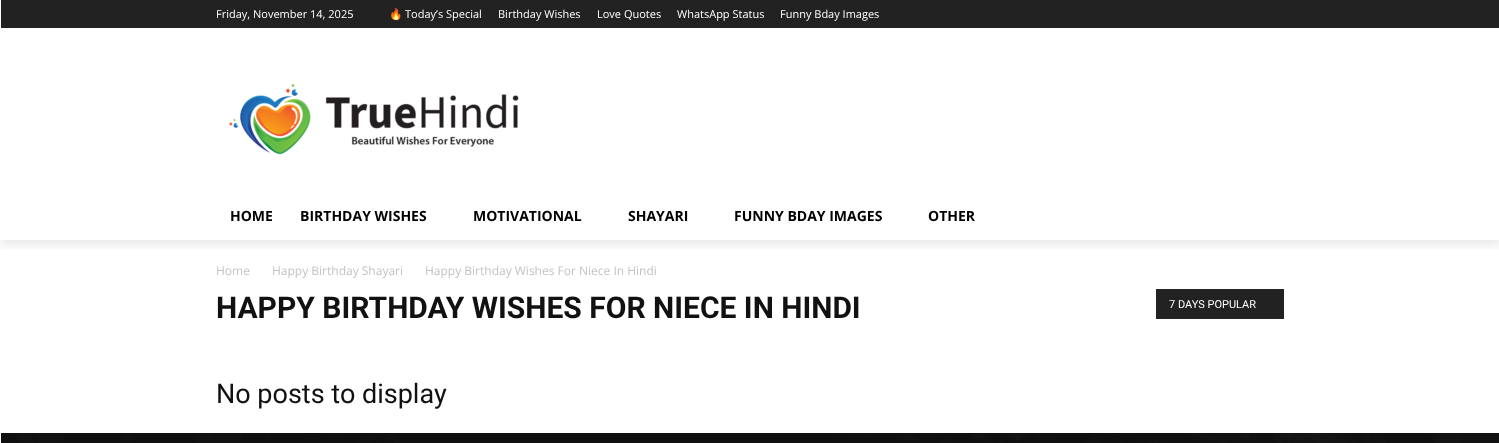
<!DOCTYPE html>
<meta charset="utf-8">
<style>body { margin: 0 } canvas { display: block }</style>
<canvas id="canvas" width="1499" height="443"></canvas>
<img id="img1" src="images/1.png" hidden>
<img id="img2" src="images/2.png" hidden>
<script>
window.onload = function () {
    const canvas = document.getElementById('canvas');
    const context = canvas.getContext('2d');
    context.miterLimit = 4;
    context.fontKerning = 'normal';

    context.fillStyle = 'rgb(255, 255, 255)';
    context.fillRect(0, 0, 1499, 443);
    context.fillStyle = 'rgb(34, 34, 34)';
    context.fillRect(1, 0, 1498, 28);
    context.drawImage(document.getElementById('img1'), 229, 84, 290, 71);
    context.save();
    context.beginPath();
    context.rect(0, 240, 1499, 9);
    context.clip();
    context.fillStyle = 'rgba(0, 0, 0, 0.08)';
    context.filter = 'blur(4px)';
    context.beginPath();
    context.rect(1, 6, 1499, 240);
    context.fill();
    context.filter = 'none';
    context.restore();
    context.fillRect(1156, 289, 128, 30);
    context.fillStyle = 'rgb(17, 17, 17)';
    context.fillRect(1, 433, 1498, 10);
    context.drawImage(document.getElementById('img2'), 0, 433, 1461, 10);
    context.font = '11px Open Sans';
    context.fillStyle = 'rgb(255, 255, 255)';
    context.fillText('Friday, November 14, 2025', 216, 18);
    context.font = '11px Noto Color Emoji';
    context.fillText('🔥', 389, 18);
    context.font = '11px Open Sans';
    context.fillText('Today’s Special', 405, 18);
    context.fillText('Birthday Wishes', 498, 18);
    context.fillText('Love Quotes', 597, 18);
    context.fillText('WhatsApp Status', 677, 18);
    context.fillText('Funny Bday Images', 780, 18);
    context.font = 'bold 14px Open Sans';
    context.fillStyle = 'rgb(0, 0, 0)';
    context.fillText('HOME', 230, 221);
    context.fillText('BIRTHDAY WISHES', 300, 221);
    context.fillText('MOTIVATIONAL', 473, 221);
    context.fillText('SHAYARI', 628, 221);
    context.fillText('FUNNY BDAY IMAGES', 734, 221);
    context.fillText('OTHER', 928, 221);
    context.font = '12px Open Sans';
    context.fillStyle = 'rgb(195, 195, 195)';
    context.fillText('Home', 216, 275);
    context.fillText('Happy Birthday Shayari', 272, 275);
    context.fillText('Happy Birthday Wishes For Niece In Hindi', 425, 275);
    context.font = 'bold 30px Roboto';
    context.fillStyle = 'rgb(17, 17, 17)';
    context.fillText('HAPPY BIRTHDAY WISHES FOR NIECE IN HINDI', 216, 318);
    context.font = '11px Roboto';
    context.fillStyle = 'rgb(255, 255, 255)';
    context.fillText('7 DAYS POPULAR', 1169, 308);
    context.font = '27px Roboto';
    context.fillStyle = 'rgb(17, 17, 17)';
    context.fillText('No posts to display', 216, 403);
};
</script>
